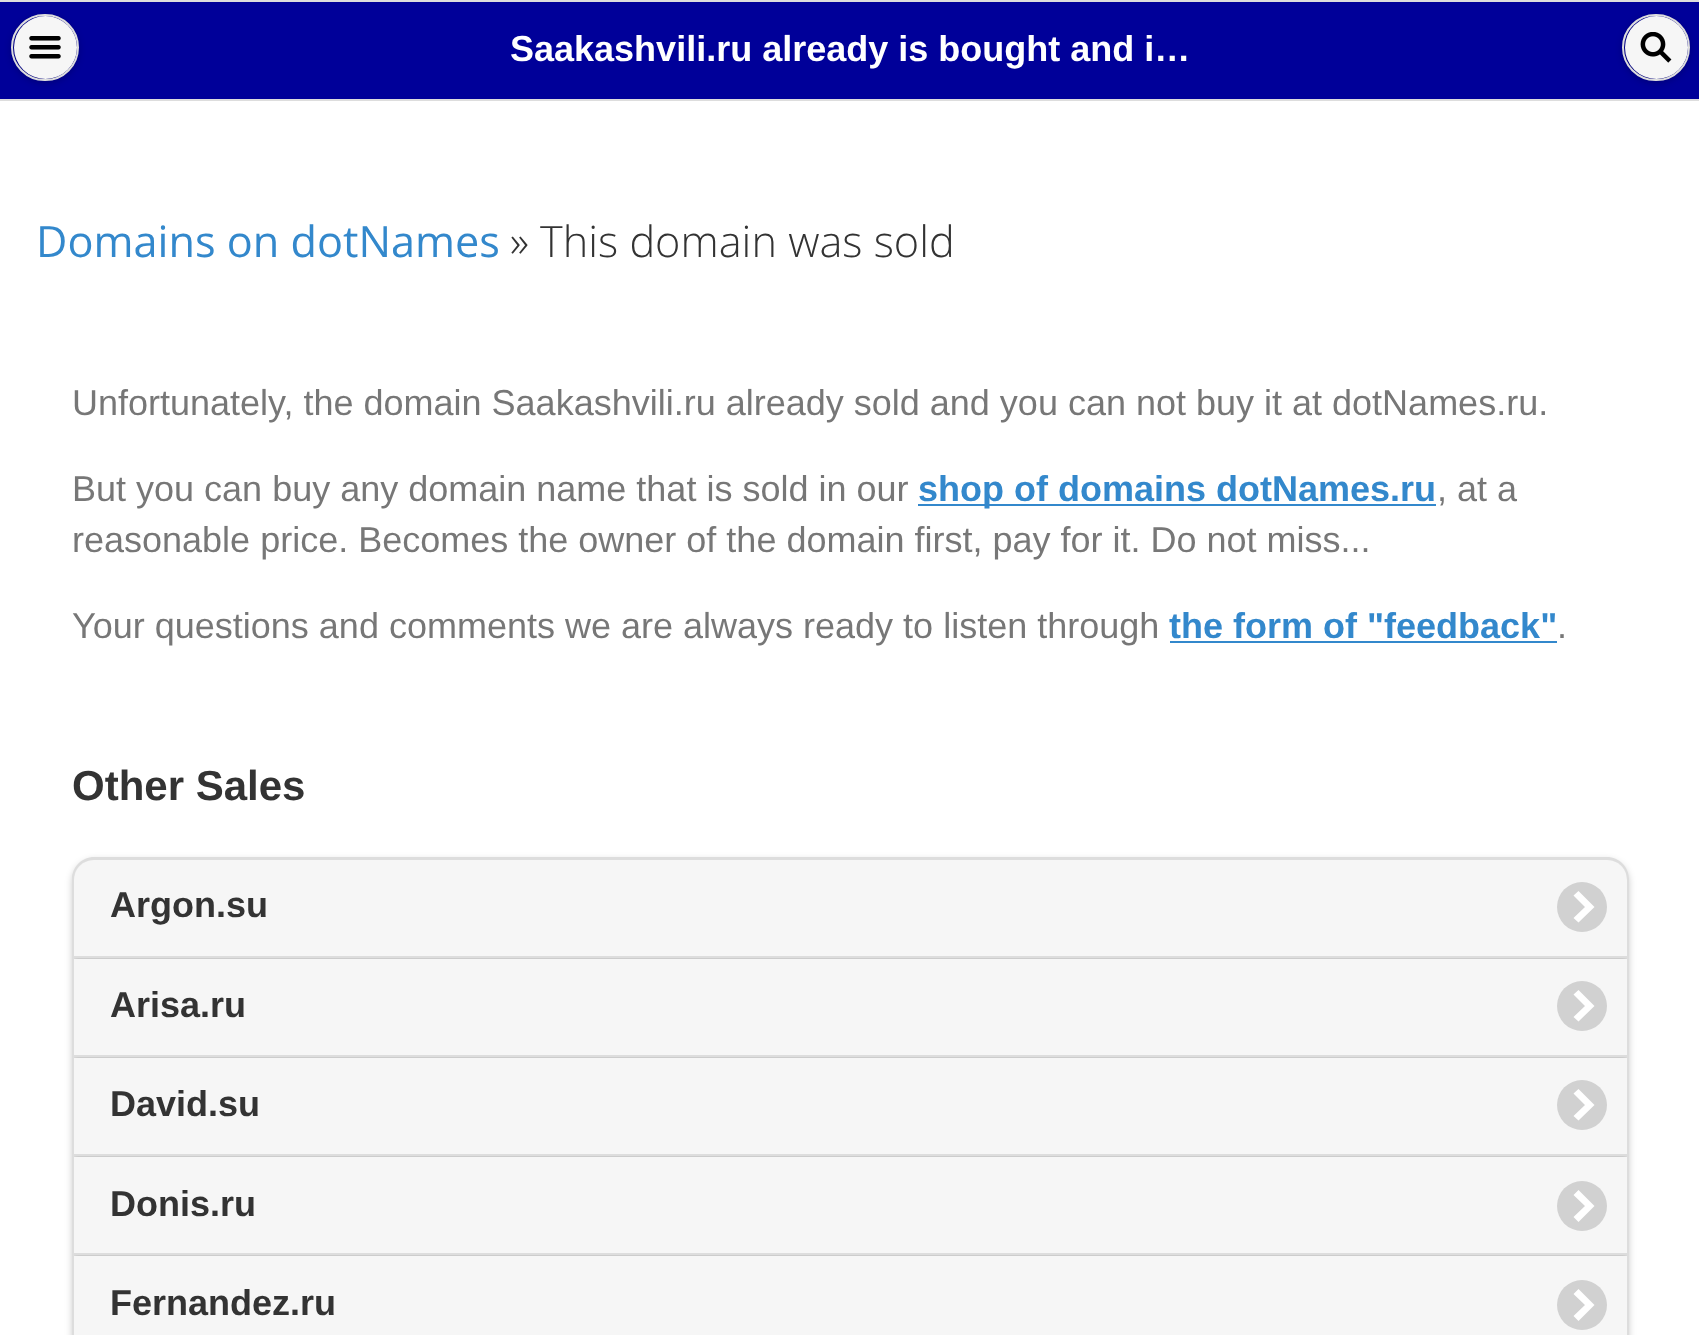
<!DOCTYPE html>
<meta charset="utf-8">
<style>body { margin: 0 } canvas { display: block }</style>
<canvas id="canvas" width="1699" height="1335"></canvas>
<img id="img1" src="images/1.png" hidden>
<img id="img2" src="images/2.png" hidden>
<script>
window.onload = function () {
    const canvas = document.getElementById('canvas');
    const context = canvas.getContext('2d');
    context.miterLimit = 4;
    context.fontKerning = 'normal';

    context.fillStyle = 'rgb(255, 255, 255)';
    context.fillRect(0, 0, 1699, 1335);
    context.fillStyle = 'rgb(0, 0, 153)';
    context.fillRect(0, 2, 1699, 97);
    context.fillStyle = 'rgb(221, 221, 221)';
    context.fillRect(0, 0, 1699, 2);
    context.fillRect(0, 99, 1699, 2);
    context.fillStyle = 'rgba(0, 0, 0, 0.2)';
    context.filter = 'blur(3.5px)';
    context.beginPath();
    context.roundRect(11, 16, 68, 67, 33.5);
    context.fill();
    context.filter = 'none';
    context.fillStyle = 'rgb(246, 246, 246)';
    context.beginPath();
    context.arc(45.5, 47.5, 31.5, 0, 2 * Math.PI);
    context.fill();
    context.beginPath();
    context.roundRect(12, 15, 66, 65, 32.5);
    context.strokeStyle = 'rgb(221, 221, 221)';
    context.lineWidth = 2;
    context.stroke();
    context.drawImage(document.getElementById('img1'), 29, 36, 32, 23);
    context.fillStyle = 'rgba(0, 0, 0, 0.2)';
    context.filter = 'blur(3.5px)';
    context.beginPath();
    context.roundRect(1622, 16, 68, 67, 33.5);
    context.fill();
    context.filter = 'none';
    context.fillStyle = 'rgb(246, 246, 246)';
    context.beginPath();
    context.arc(1656.5, 47.5, 31.5, 0, 2 * Math.PI);
    context.fill();
    context.beginPath();
    context.roundRect(1623, 15, 66, 65, 32.5);
    context.stroke();
    context.drawImage(document.getElementById('img2'), 1640, 32, 32, 31);
    context.fillStyle = 'rgb(51, 136, 204)';
    context.fillRect(918, 504, 518, 2);
    context.fillRect(1170, 641, 387, 2);
    context.fillStyle = 'rgba(0, 0, 0, 0.2)';
    context.filter = 'blur(3.5px)';
    context.beginPath();
    context.roundRect(72, 860, 1557, 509, 23);
    context.fill();
    context.filter = 'none';
    context.fillStyle = 'rgb(246, 246, 246)';
    context.beginPath();
    context.roundRect(74, 860, 1553, 96, [20, 20, 0, 0]);
    context.fill();
    context.fillStyle = 'rgb(221, 221, 221)';
    context.beginPath();
    context.moveTo(94, 857);
    context.lineTo(1607, 857);
    context.bezierCurveTo(1619, 857, 1629, 867, 1629, 879);
    context.lineTo(1629, 956);
    context.lineTo(72, 956);
    context.lineTo(72, 879);
    context.bezierCurveTo(72, 867, 82, 857, 94, 857);
    context.closePath();
    context.moveTo(94, 860);
    context.lineTo(1607, 860);
    context.bezierCurveTo(1618, 860, 1627, 868, 1627, 879);
    context.lineTo(1627, 956);
    context.lineTo(74, 956);
    context.lineTo(74, 879);
    context.bezierCurveTo(74, 868, 83, 860, 94, 860);
    context.closePath();
    context.fill('evenodd');
    context.fillStyle = 'rgb(209, 209, 209)';
    context.beginPath();
    context.arc(1582, 907, 25, 0, 2 * Math.PI);
    context.fill();
    context.fillStyle = 'rgb(255, 255, 255)';
    context.beginPath();
    context.moveTo(1573.5, 895.5);
    context.lineTo(1585, 907);
    context.lineTo(1573.5, 918);
    context.lineTo(1578.5, 922.5);
    context.lineTo(1594.5, 907);
    context.lineTo(1578.5, 891);
    context.closePath();
    context.fill();
    context.fillStyle = 'rgb(246, 246, 246)';
    context.fillRect(74, 959, 1553, 96);
    context.fillStyle = 'rgb(221, 221, 221)';
    context.fillRect(72, 956, 1557, 2);
    context.fillRect(1628, 956, 1, 99);
    context.fillRect(72, 956, 1, 99);
    context.fillStyle = 'rgb(209, 209, 209)';
    context.beginPath();
    context.arc(1582, 1006, 25, 0, 2 * Math.PI);
    context.fill();
    context.fillStyle = 'rgb(255, 255, 255)';
    context.beginPath();
    context.moveTo(1573.5, 994.5);
    context.lineTo(1585, 1006);
    context.lineTo(1573.5, 1017);
    context.lineTo(1578.5, 1021.5);
    context.lineTo(1594.5, 1006);
    context.lineTo(1578.5, 990);
    context.closePath();
    context.fill();
    context.fillStyle = 'rgb(246, 246, 246)';
    context.fillRect(74, 1058, 1553, 96);
    context.fillStyle = 'rgb(221, 221, 221)';
    context.fillRect(72, 1055, 1557, 2);
    context.fillRect(1628, 1055, 1, 99);
    context.fillRect(72, 1055, 1, 99);
    context.fillStyle = 'rgb(209, 209, 209)';
    context.beginPath();
    context.arc(1582, 1105, 25, 0, 2 * Math.PI);
    context.fill();
    context.fillStyle = 'rgb(255, 255, 255)';
    context.beginPath();
    context.moveTo(1573.5, 1093.5);
    context.lineTo(1585, 1105);
    context.lineTo(1573.5, 1116);
    context.lineTo(1578.5, 1120.5);
    context.lineTo(1594.5, 1105);
    context.lineTo(1578.5, 1089);
    context.closePath();
    context.fill();
    context.fillStyle = 'rgb(246, 246, 246)';
    context.fillRect(74, 1157, 1553, 96);
    context.fillStyle = 'rgb(221, 221, 221)';
    context.fillRect(72, 1154, 1557, 2);
    context.fillRect(1628, 1154, 1, 99);
    context.fillRect(72, 1154, 1, 99);
    context.fillStyle = 'rgb(209, 209, 209)';
    context.beginPath();
    context.arc(1582, 1206, 25, 0, 2 * Math.PI);
    context.fill();
    context.fillStyle = 'rgb(255, 255, 255)';
    context.beginPath();
    context.moveTo(1573.5, 1195);
    context.lineTo(1585, 1206);
    context.lineTo(1573.5, 1217);
    context.lineTo(1578.5, 1222);
    context.lineTo(1594.5, 1206);
    context.lineTo(1578.5, 1190);
    context.closePath();
    context.fill();
    context.fillStyle = 'rgb(246, 246, 246)';
    context.fillRect(74, 1256, 1553, 79);
    context.fillStyle = 'rgb(221, 221, 221)';
    context.fillRect(72, 1253, 1557, 2);
    context.fillRect(1628, 1253, 1, 82);
    context.fillRect(72, 1253, 1, 82);
    context.fillStyle = 'rgb(209, 209, 209)';
    context.beginPath();
    context.arc(1582, 1305, 25, 0, 2 * Math.PI);
    context.fill();
    context.fillStyle = 'rgb(255, 255, 255)';
    context.beginPath();
    context.moveTo(1573.5, 1294);
    context.lineTo(1585, 1305);
    context.lineTo(1573.5, 1316);
    context.lineTo(1578.5, 1321);
    context.lineTo(1594.5, 1305);
    context.lineTo(1578.5, 1289);
    context.closePath();
    context.fill();
    context.font = 'bold 36px Liberation Sans';
    context.fillText('Saakashvili.ru already is bought and i…', 510, 61);
    context.font = '43.25px Open Sans';
    context.fillStyle = 'rgb(51, 136, 204)';
    context.fillText('Domains on dotNames', 36, 257);
    context.font = '300 43.25px Open Sans';
    context.fillStyle = 'rgb(51, 51, 51)';
    context.fillText('» This domain was sold', 510, 257);
    context.font = '36px Liberation Sans';
    context.fillStyle = 'rgb(119, 119, 119)';
    context.fillText('Unfortunately, the domain Saakashvili.ru already sold and you can not buy it at dotNames.ru.', 72, 415);
    context.fillText('But you can buy any domain name that is sold in our', 72, 501);
    context.font = 'bold 36px Liberation Sans';
    context.fillStyle = 'rgb(51, 136, 204)';
    context.fillText('shop of domains dotNames.ru', 918, 501);
    context.font = '36px Liberation Sans';
    context.fillStyle = 'rgb(119, 119, 119)';
    context.fillText(', at a', 1437, 501);
    context.fillText('reasonable price. Becomes the owner of the domain first, pay for it. Do not miss...', 72, 552);
    context.fillText('Your questions and comments we are always ready to listen through', 72, 638);
    context.font = 'bold 36px Liberation Sans';
    context.fillStyle = 'rgb(51, 136, 204)';
    context.fillText('the form of "feedback"', 1169, 638);
    context.font = '36px Liberation Sans';
    context.fillStyle = 'rgb(119, 119, 119)';
    context.fillText('.', 1557, 638);
    context.font = 'bold 42px Liberation Sans';
    context.fillStyle = 'rgb(51, 51, 51)';
    context.fillText('Other Sales', 72, 800);
    context.font = 'bold 36px Liberation Sans';
    context.fillText('Argon.su', 110, 917);
    context.fillText('Arisa.ru', 110, 1017);
    context.fillText('David.su', 110, 1116);
    context.fillText('Donis.ru', 110, 1216);
    context.fillText('Fernandez.ru', 110, 1315);
};
</script>
